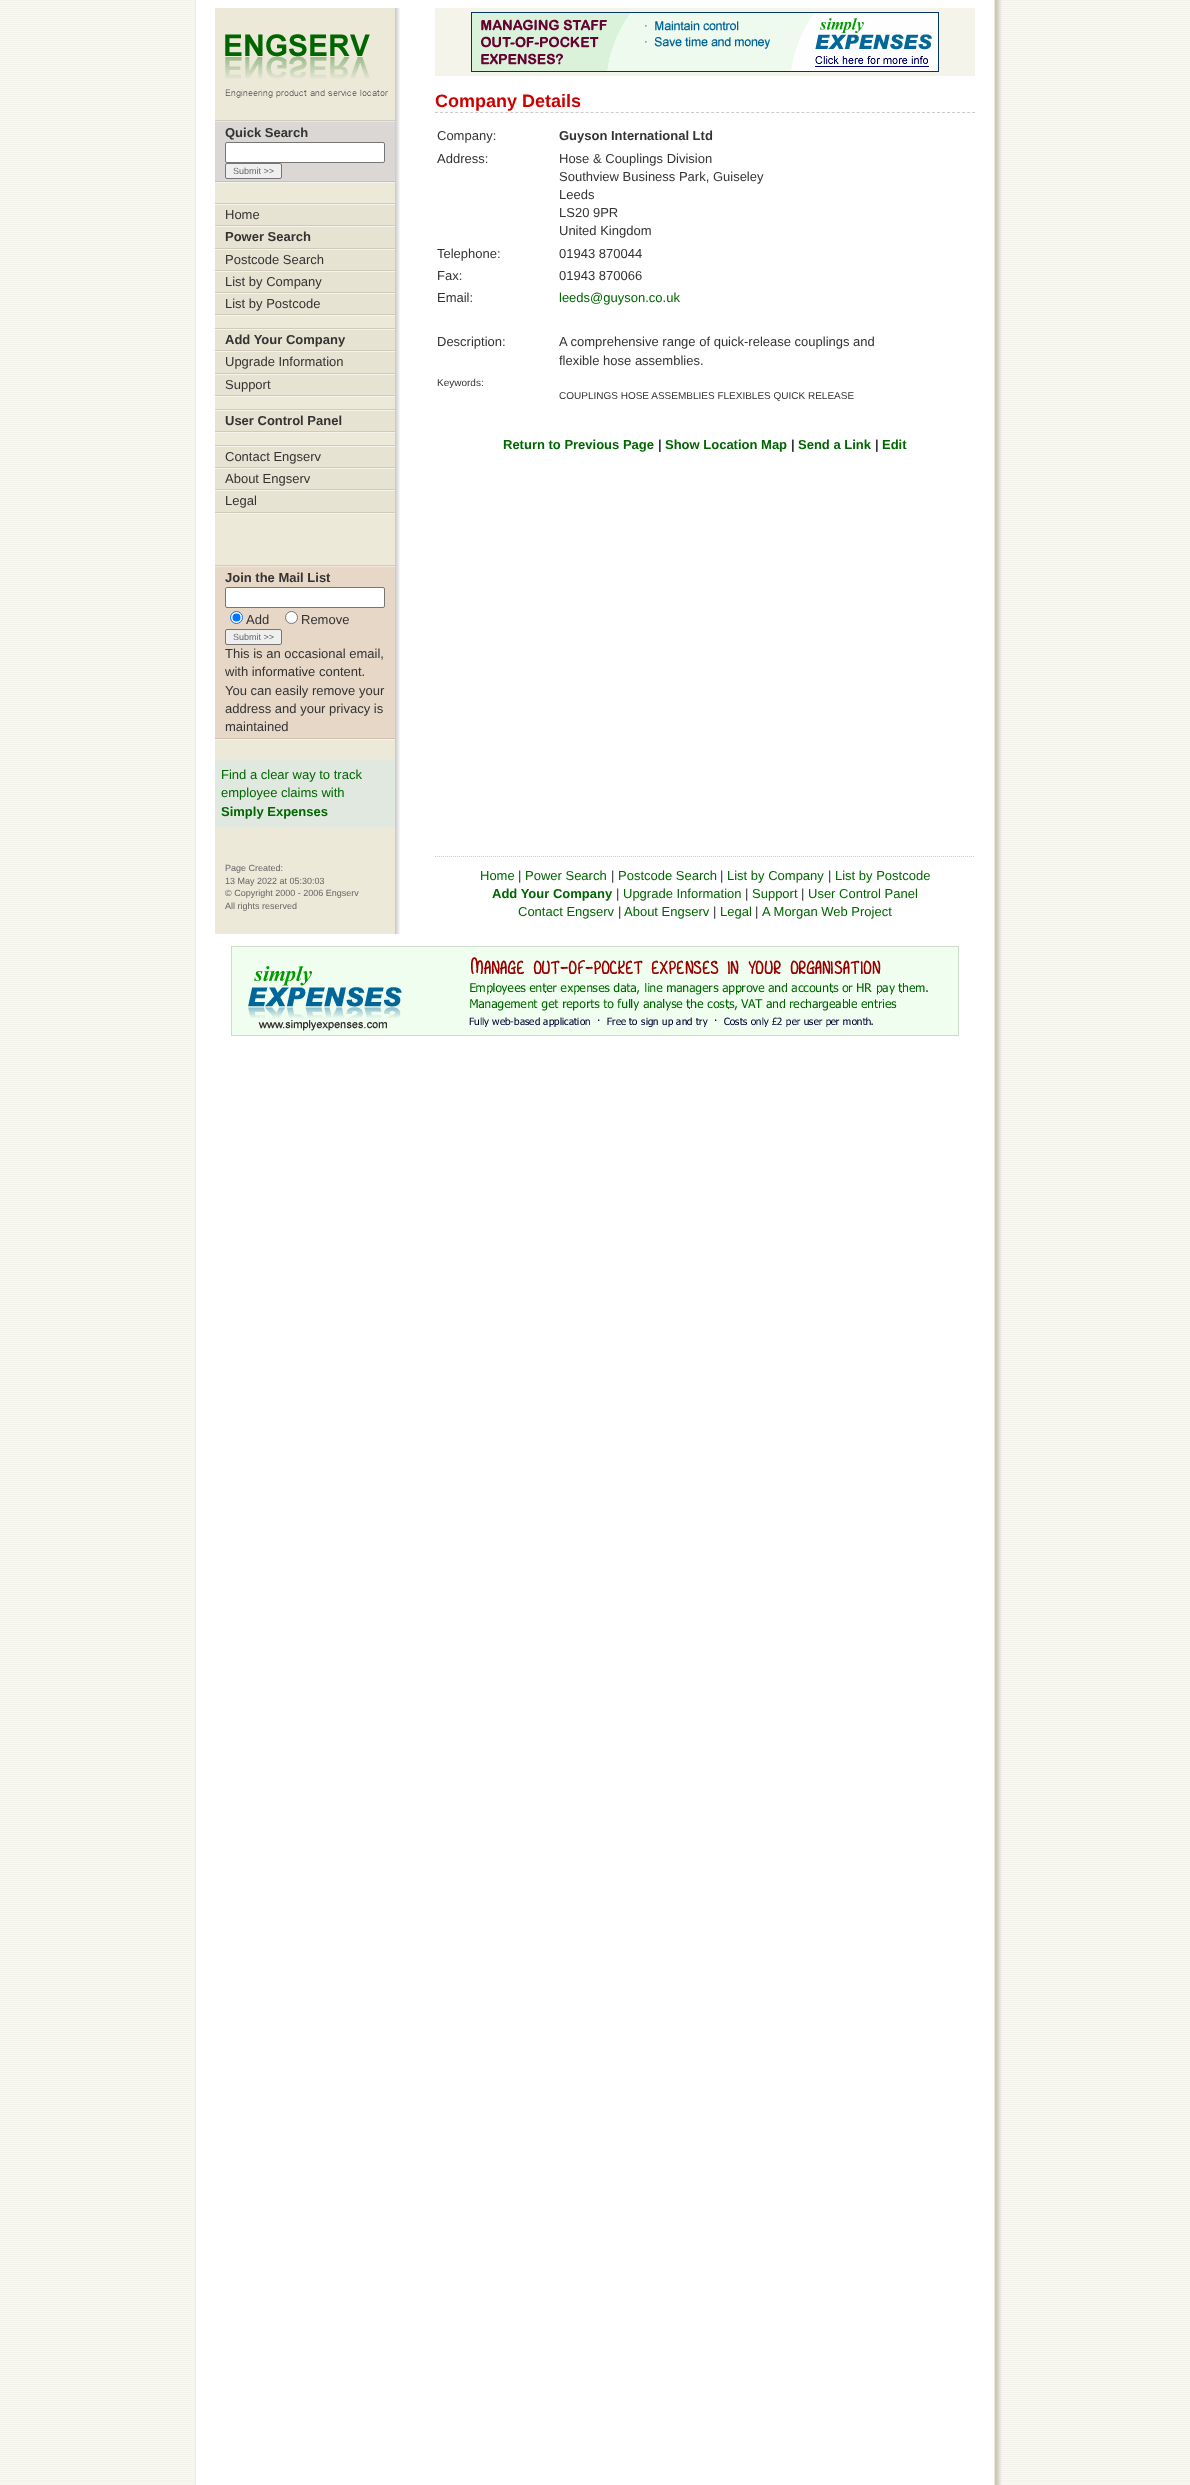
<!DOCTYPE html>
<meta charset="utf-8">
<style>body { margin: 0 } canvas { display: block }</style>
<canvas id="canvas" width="1190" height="2485"></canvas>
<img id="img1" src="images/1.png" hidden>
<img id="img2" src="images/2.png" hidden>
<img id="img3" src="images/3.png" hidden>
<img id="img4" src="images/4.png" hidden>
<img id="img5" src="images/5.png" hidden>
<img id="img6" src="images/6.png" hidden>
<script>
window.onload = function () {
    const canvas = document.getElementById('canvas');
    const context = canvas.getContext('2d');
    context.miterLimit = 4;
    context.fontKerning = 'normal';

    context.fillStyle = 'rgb(255, 255, 255)';
    context.fillRect(0, 0, 1190, 2485);
    context.drawImage(document.getElementById('img1'), 0, 0, 1190, 2485);
    context.fillStyle = 'rgb(236, 233, 216)';
    context.fillRect(215, 8, 180, 926);
    context.drawImage(document.getElementById('img2'), 225, 34, 163, 64);
    context.fillStyle = 'rgb(218, 215, 212)';
    context.fillRect(215, 122, 180, 59);
    context.fillStyle = 'rgb(206, 203, 189)';
    context.fillRect(215, 120, 180, 1);
    context.fillStyle = 'rgb(245, 243, 234)';
    context.fillRect(215, 182, 180, 1);
    context.fillStyle = 'rgb(233, 231, 235)';
    context.fillRect(215, 121, 180, 1);
    context.fillStyle = 'rgb(195, 193, 192)';
    context.fillRect(215, 181, 180, 1);
    context.fillStyle = 'rgb(255, 255, 255)';
    context.beginPath();
    context.roundRect(225.5, 142.5, 159, 20, 1.5);
    context.fill();
    context.strokeStyle = 'rgb(118, 118, 118)';
    context.stroke();
    context.fillStyle = 'rgb(239, 239, 239)';
    context.beginPath();
    context.roundRect(225.5, 163.5, 56, 15, 1.5);
    context.fill();
    context.stroke();
    context.fillStyle = 'rgb(206, 203, 189)';
    context.fillRect(215, 203, 180, 1);
    context.fillStyle = 'rgb(245, 243, 234)';
    context.fillRect(215, 513, 180, 1);
    context.fillRect(215, 204, 180, 1);
    context.fillStyle = 'rgb(206, 203, 189)';
    context.fillRect(215, 225, 180, 1);
    context.fillStyle = 'rgb(230, 227, 210)';
    context.fillRect(215, 205, 180, 20);
    context.fillStyle = 'rgb(245, 243, 234)';
    context.fillRect(215, 226, 180, 1);
    context.fillStyle = 'rgb(206, 203, 189)';
    context.fillRect(215, 248, 180, 1);
    context.fillStyle = 'rgb(230, 227, 210)';
    context.fillRect(215, 227, 180, 21);
    context.fillStyle = 'rgb(245, 243, 234)';
    context.fillRect(215, 249, 180, 1);
    context.fillStyle = 'rgb(206, 203, 189)';
    context.fillRect(215, 270, 180, 1);
    context.fillStyle = 'rgb(230, 227, 210)';
    context.fillRect(215, 250, 180, 20);
    context.fillStyle = 'rgb(245, 243, 234)';
    context.fillRect(215, 271, 180, 1);
    context.fillStyle = 'rgb(206, 203, 189)';
    context.fillRect(215, 292, 180, 1);
    context.fillStyle = 'rgb(230, 227, 210)';
    context.fillRect(215, 272, 180, 20);
    context.fillStyle = 'rgb(245, 243, 234)';
    context.fillRect(215, 293, 180, 1);
    context.fillStyle = 'rgb(206, 203, 189)';
    context.fillRect(215, 314, 180, 1);
    context.fillStyle = 'rgb(230, 227, 210)';
    context.fillRect(215, 294, 180, 20);
    context.fillStyle = 'rgb(245, 243, 234)';
    context.fillRect(215, 315, 180, 1);
    context.fillStyle = 'rgb(206, 203, 189)';
    context.fillRect(215, 328, 180, 1);
    context.fillStyle = 'rgb(245, 243, 234)';
    context.fillRect(215, 329, 180, 1);
    context.fillStyle = 'rgb(206, 203, 189)';
    context.fillRect(215, 350, 180, 1);
    context.fillStyle = 'rgb(230, 227, 210)';
    context.fillRect(215, 330, 180, 20);
    context.fillStyle = 'rgb(245, 243, 234)';
    context.fillRect(215, 351, 180, 1);
    context.fillStyle = 'rgb(206, 203, 189)';
    context.fillRect(215, 373, 180, 1);
    context.fillStyle = 'rgb(230, 227, 210)';
    context.fillRect(215, 352, 180, 21);
    context.fillStyle = 'rgb(245, 243, 234)';
    context.fillRect(215, 374, 180, 1);
    context.fillStyle = 'rgb(206, 203, 189)';
    context.fillRect(215, 395, 180, 1);
    context.fillStyle = 'rgb(230, 227, 210)';
    context.fillRect(215, 375, 180, 20);
    context.fillStyle = 'rgb(245, 243, 234)';
    context.fillRect(215, 396, 180, 1);
    context.fillStyle = 'rgb(206, 203, 189)';
    context.fillRect(215, 409, 180, 1);
    context.fillStyle = 'rgb(245, 243, 234)';
    context.fillRect(215, 410, 180, 1);
    context.fillStyle = 'rgb(206, 203, 189)';
    context.fillRect(215, 431, 180, 1);
    context.fillStyle = 'rgb(230, 227, 210)';
    context.fillRect(215, 411, 180, 20);
    context.fillStyle = 'rgb(245, 243, 234)';
    context.fillRect(215, 432, 180, 1);
    context.fillStyle = 'rgb(206, 203, 189)';
    context.fillRect(215, 445, 180, 1);
    context.fillStyle = 'rgb(245, 243, 234)';
    context.fillRect(215, 446, 180, 1);
    context.fillStyle = 'rgb(206, 203, 189)';
    context.fillRect(215, 467, 180, 1);
    context.fillStyle = 'rgb(230, 227, 210)';
    context.fillRect(215, 447, 180, 20);
    context.fillStyle = 'rgb(245, 243, 234)';
    context.fillRect(215, 468, 180, 1);
    context.fillStyle = 'rgb(206, 203, 189)';
    context.fillRect(215, 489, 180, 1);
    context.fillStyle = 'rgb(230, 227, 210)';
    context.fillRect(215, 469, 180, 20);
    context.fillStyle = 'rgb(245, 243, 234)';
    context.fillRect(215, 490, 180, 1);
    context.fillStyle = 'rgb(206, 203, 189)';
    context.fillRect(215, 512, 180, 1);
    context.fillStyle = 'rgb(230, 227, 210)';
    context.fillRect(215, 491, 180, 21);
    context.fillStyle = 'rgb(231, 215, 199)';
    context.fillRect(215, 567, 180, 171);
    context.fillStyle = 'rgb(206, 203, 189)';
    context.fillRect(215, 565, 180, 1);
    context.fillStyle = 'rgb(245, 243, 234)';
    context.fillRect(215, 739, 180, 1);
    context.fillStyle = 'rgb(246, 231, 222)';
    context.fillRect(215, 566, 180, 1);
    context.fillStyle = 'rgb(208, 193, 179)';
    context.fillRect(215, 738, 180, 1);
    context.fillStyle = 'rgb(255, 255, 255)';
    context.beginPath();
    context.roundRect(225.5, 587.5, 159, 20, 1.5);
    context.fill();
    context.stroke();
    context.beginPath();
    context.arc(236.5, 617.5, 6, 0, 2 * Math.PI);
    context.fill();
    context.strokeStyle = 'rgb(0, 117, 255)';
    context.stroke();
    context.fillStyle = 'rgb(0, 117, 255)';
    context.beginPath();
    context.arc(236.5, 617.5, 4, 0, 2 * Math.PI);
    context.fill();
    context.fillStyle = 'rgb(255, 255, 255)';
    context.beginPath();
    context.arc(291.5, 617.5, 6, 0, 2 * Math.PI);
    context.fill();
    context.strokeStyle = 'rgb(118, 118, 118)';
    context.stroke();
    context.fillStyle = 'rgb(239, 239, 239)';
    context.beginPath();
    context.roundRect(225.5, 629.5, 56, 15, 1.5);
    context.fill();
    context.stroke();
    context.fillStyle = 'rgb(224, 232, 224)';
    context.fillRect(215, 760, 180, 67);
    context.drawImage(document.getElementById('img3'), 395, 8, 5, 832);
    context.fillStyle = 'rgb(245, 244, 235)';
    context.fillRect(435, 8, 540, 68);
    context.drawImage(document.getElementById('img4'), 471, 12, 468, 60);
    context.beginPath();
    context.moveTo(435, 112.5);
    context.lineTo(975, 112.5);
    context.strokeStyle = 'rgb(204, 204, 204)';
    context.setLineDash([3, 2.02]);
    context.stroke();
    context.drawImage(document.getElementById('img5'), 395, 840, 5, 94);
    context.beginPath();
    context.moveTo(435, 856.5);
    context.lineTo(975, 856.5);
    context.setLineDash([1, 1]);
    context.stroke();
    context.drawImage(document.getElementById('img6'), 231, 946, 728, 90);
    context.font = 'bold 13px Liberation Sans';
    context.fillStyle = 'rgb(51, 51, 51)';
    context.fillText('Quick Search', 225, 137);
    context.font = '9px Liberation Sans';
    context.fillStyle = 'rgb(102, 102, 102)';
    context.fillText('Submit >>', 233, 174);
    context.font = '13px Liberation Sans';
    context.fillStyle = 'rgb(51, 51, 51)';
    context.fillText('Home', 225, 219);
    context.font = 'bold 13px Liberation Sans';
    context.fillText('Power Search', 225, 241);
    context.font = '13px Liberation Sans';
    context.fillText('Postcode Search', 225, 264);
    context.fillText('List by Company', 225, 286);
    context.fillText('List by Postcode', 225, 308);
    context.font = 'bold 13px Liberation Sans';
    context.fillText('Add Your Company', 225, 344);
    context.font = '13px Liberation Sans';
    context.fillText('Upgrade Information', 225, 366);
    context.fillText('Support', 225, 389);
    context.font = 'bold 13px Liberation Sans';
    context.fillText('User Control Panel', 225, 425);
    context.font = '13px Liberation Sans';
    context.fillText('Contact Engserv', 225, 461);
    context.fillText('About Engserv', 225, 483);
    context.fillText('Legal', 225, 505);
    context.font = 'bold 13px Liberation Sans';
    context.fillText('Join the Mail List', 225, 582);
    context.font = '13px Liberation Sans';
    context.fillText('Add', 246, 624);
    context.fillText('Remove', 301, 624);
    context.font = '9px Liberation Sans';
    context.fillStyle = 'rgb(102, 102, 102)';
    context.fillText('Submit >>', 233, 640);
    context.font = '13px Liberation Sans';
    context.fillStyle = 'rgb(51, 51, 51)';
    context.fillText('This is an occasional email,', 225, 658);
    context.fillText('with informative content.', 225, 676);
    context.fillText('You can easily remove your', 225, 695);
    context.fillText('address and your privacy is', 225, 713);
    context.fillText('maintained', 225, 731);
    context.fillStyle = 'rgb(0, 102, 0)';
    context.fillText('Find a clear way to track', 221, 779);
    context.fillText('employee claims with', 221, 797);
    context.font = 'bold 13px Liberation Sans';
    context.fillText('Simply Expenses', 221, 816);
    context.font = 'bold 18px Liberation Sans';
    context.fillStyle = 'rgb(204, 0, 0)';
    context.fillText('Company Details', 435, 107);
    context.font = '13px Liberation Sans';
    context.fillStyle = 'rgb(51, 51, 51)';
    context.fillText('Company:', 437, 140);
    context.font = 'bold 13px Liberation Sans';
    context.fillText('Guyson International Ltd', 559, 140);
    context.font = '13px Liberation Sans';
    context.fillText('Address:', 437, 163);
    context.fillText('Hose & Couplings Division', 559, 163);
    context.fillText('Southview Business Park, Guiseley', 559, 181);
    context.fillText('Leeds', 559, 199);
    context.fillText('LS20 9PR', 559, 217);
    context.fillText('United Kingdom', 559, 235);
    context.fillText('Telephone:', 437, 258);
    context.fillText('01943 870044', 559, 258);
    context.fillText('Fax:', 437, 280);
    context.fillText('01943 870066', 559, 280);
    context.fillText('Email:', 437, 302);
    context.fillStyle = 'rgb(0, 102, 0)';
    context.fillText('leeds@guyson.co.uk', 559, 302);
    context.fillStyle = 'rgb(51, 51, 51)';
    context.fillText('Description:', 437, 346);
    context.fillText('A comprehensive range of quick-release couplings and', 559, 346);
    context.fillText('flexible hose assemblies.', 559, 365);
    context.font = '10px Liberation Sans';
    context.fillText('Keywords:', 437, 386);
    context.fillText('COUPLINGS HOSE ASSEMBLIES FLEXIBLES QUICK RELEASE', 559, 399);
    context.font = 'bold 13px Liberation Sans';
    context.fillStyle = 'rgb(0, 102, 0)';
    context.fillText('Return to Previous Page', 503, 449);
    context.fillStyle = 'rgb(51, 51, 51)';
    context.fillText('|', 658, 449);
    context.fillStyle = 'rgb(0, 102, 0)';
    context.fillText('Show Location Map', 665, 449);
    context.fillStyle = 'rgb(51, 51, 51)';
    context.fillText('|', 791, 449);
    context.fillStyle = 'rgb(0, 102, 0)';
    context.fillText('Send a Link', 798, 449);
    context.fillStyle = 'rgb(51, 51, 51)';
    context.fillText('|', 875, 449);
    context.fillStyle = 'rgb(0, 102, 0)';
    context.fillText('Edit', 882, 449);
    context.font = '9px Liberation Sans';
    context.fillStyle = 'rgb(102, 102, 102)';
    context.fillText('Page Created:', 225, 871);
    context.fillText('13 May 2022 at 05:30:03', 225, 884);
    context.fillText('© Copyright 2000 - 2006 Engserv', 225, 896);
    context.fillText('All rights reserved', 225, 909);
    context.font = '13px Liberation Sans';
    context.fillStyle = 'rgb(0, 102, 0)';
    context.fillText('Home', 480, 880);
    context.fillStyle = 'rgb(51, 51, 51)';
    context.fillText('|', 518, 880);
    context.fillStyle = 'rgb(0, 102, 0)';
    context.fillText('Power Search', 525, 880);
    context.fillStyle = 'rgb(51, 51, 51)';
    context.fillText('|', 611, 880);
    context.fillStyle = 'rgb(0, 102, 0)';
    context.fillText('Postcode Search', 618, 880);
    context.fillStyle = 'rgb(51, 51, 51)';
    context.fillText('|', 720, 880);
    context.fillStyle = 'rgb(0, 102, 0)';
    context.fillText('List by Company', 727, 880);
    context.fillStyle = 'rgb(51, 51, 51)';
    context.fillText('|', 828, 880);
    context.fillStyle = 'rgb(0, 102, 0)';
    context.fillText('List by Postcode', 835, 880);
    context.font = 'bold 13px Liberation Sans';
    context.fillText('Add Your Company', 492, 898);
    context.font = '13px Liberation Sans';
    context.fillStyle = 'rgb(51, 51, 51)';
    context.fillText('|', 616, 898);
    context.fillStyle = 'rgb(0, 102, 0)';
    context.fillText('Upgrade Information', 623, 898);
    context.fillStyle = 'rgb(51, 51, 51)';
    context.fillText('|', 745, 898);
    context.fillStyle = 'rgb(0, 102, 0)';
    context.fillText('Support', 752, 898);
    context.fillStyle = 'rgb(51, 51, 51)';
    context.fillText('|', 801, 898);
    context.fillStyle = 'rgb(0, 102, 0)';
    context.fillText('User Control Panel', 808, 898);
    context.fillText('Contact Engserv', 518, 916);
    context.fillStyle = 'rgb(51, 51, 51)';
    context.fillText('|', 618, 916);
    context.fillStyle = 'rgb(0, 102, 0)';
    context.fillText('About Engserv', 624, 916);
    context.fillStyle = 'rgb(51, 51, 51)';
    context.fillText('|', 713, 916);
    context.fillStyle = 'rgb(0, 102, 0)';
    context.fillText('Legal', 720, 916);
    context.fillStyle = 'rgb(51, 51, 51)';
    context.fillText('|', 755, 916);
    context.fillStyle = 'rgb(0, 102, 0)';
    context.fillText('A Morgan Web Project', 762, 916);
};
</script>
